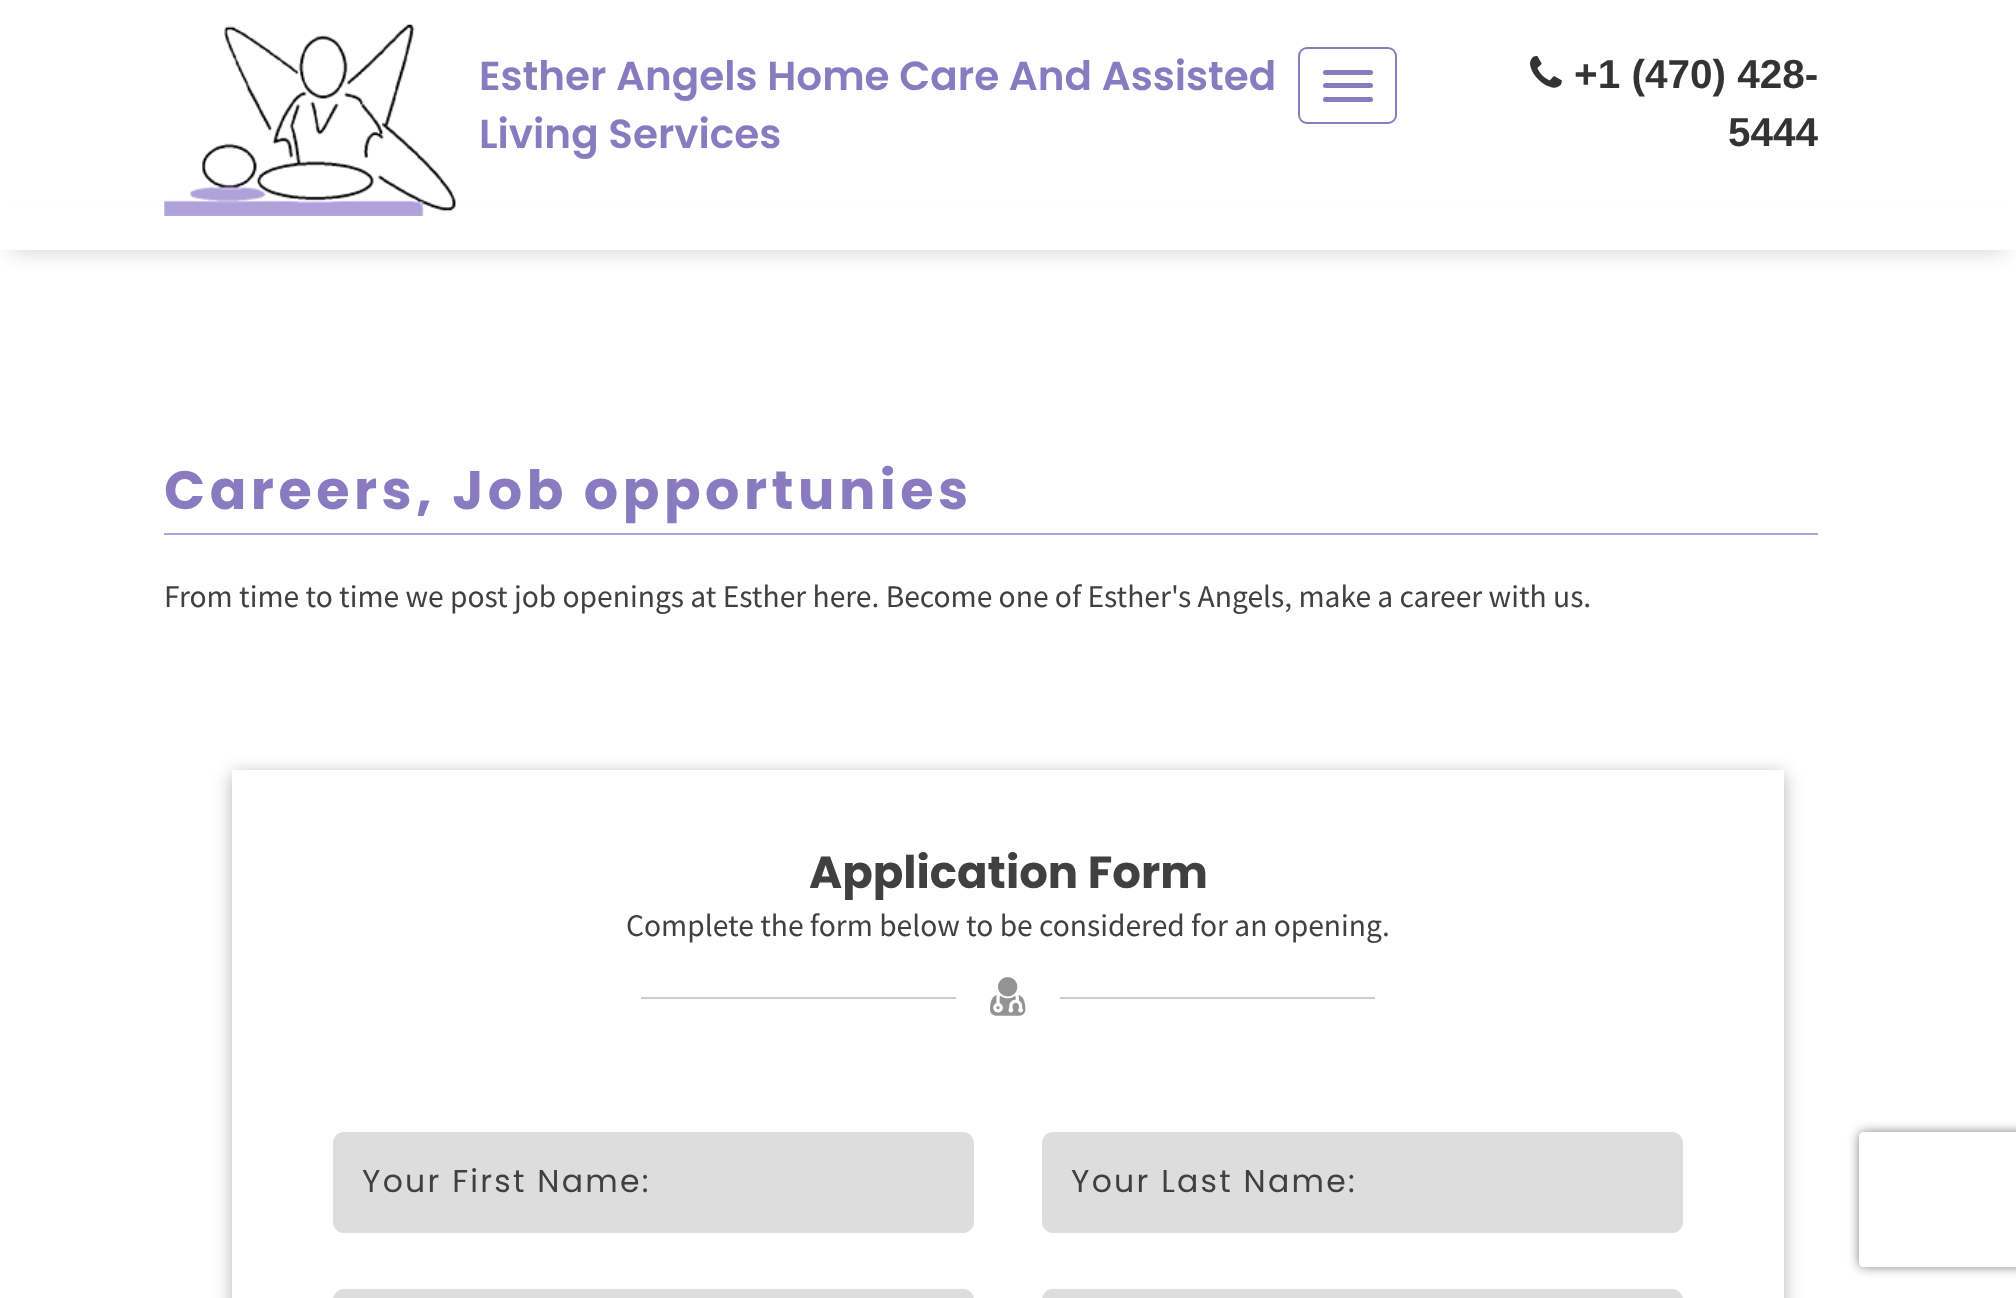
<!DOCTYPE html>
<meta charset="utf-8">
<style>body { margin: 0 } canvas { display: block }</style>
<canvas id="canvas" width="2016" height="1298"></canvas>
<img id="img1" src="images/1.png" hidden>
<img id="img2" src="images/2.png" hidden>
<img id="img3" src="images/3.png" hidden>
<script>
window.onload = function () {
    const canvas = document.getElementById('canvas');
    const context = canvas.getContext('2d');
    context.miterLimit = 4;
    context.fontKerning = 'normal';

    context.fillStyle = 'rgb(255, 255, 255)';
    context.fillRect(0, 0, 2016, 1298);
    context.fillStyle = 'rgba(0, 0, 0, 0.2)';
    context.filter = 'blur(11px)';
    context.beginPath();
    context.rect(11, 225, 1994, 25);
    context.fill();
    context.filter = 'none';
    context.fillStyle = 'rgb(255, 255, 255)';
    context.fillRect(0, 207, 2016, 43);
    context.drawImage(document.getElementById('img1'), 164, 24, 292, 192);
    context.beginPath();
    context.roundRect(1299, 48, 97, 75, 8);
    context.strokeStyle = 'rgb(137, 123, 191)';
    context.lineWidth = 2;
    context.stroke();
    context.fillStyle = 'rgb(137, 123, 191)';
    context.beginPath();
    context.roundRect(1323, 70, 50, 5, 2.5);
    context.fill();
    context.beginPath();
    context.roundRect(1323, 83, 50, 5, 2.5);
    context.fill();
    context.beginPath();
    context.roundRect(1323, 97, 50, 5, 2.5);
    context.fill();
    context.drawImage(document.getElementById('img2'), 1530, 55, 32, 33);
    context.fillStyle = 'rgb(174, 162, 218)';
    context.fillRect(164, 533, 1654, 2);
    context.save();
    context.beginPath();
    context.moveTo(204, 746);
    context.lineTo(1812, 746);
    context.lineTo(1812, 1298);
    context.lineTo(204, 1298);
    context.closePath();
    context.moveTo(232, 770);
    context.lineTo(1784, 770);
    context.lineTo(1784, 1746);
    context.lineTo(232, 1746);
    context.closePath();
    context.clip('evenodd');
    context.fillStyle = 'rgba(0, 0, 0, 0.3)';
    context.filter = 'blur(9px)';
    context.beginPath();
    context.rect(232, 774, 1552, 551);
    context.fill();
    context.filter = 'none';
    context.restore();
    context.fillStyle = 'rgb(204, 204, 204)';
    context.fillRect(641, 997, 315, 2);
    context.drawImage(document.getElementById('img3'), 990, 977, 36, 39);
    context.fillRect(1060, 997, 315, 2);
    context.fillStyle = 'rgb(221, 221, 221)';
    context.beginPath();
    context.roundRect(334, 1133, 639, 99, 10);
    context.fill();
    context.strokeStyle = 'rgb(221, 221, 221)';
    context.stroke();
    context.beginPath();
    context.roundRect(334, 1290, 639, 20, 10);
    context.fill();
    context.stroke();
    context.beginPath();
    context.roundRect(1043, 1133, 639, 99, 10);
    context.fill();
    context.stroke();
    context.beginPath();
    context.roundRect(1043, 1290, 639, 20, 10);
    context.fill();
    context.stroke();
    context.save();
    context.beginPath();
    context.moveTo(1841, 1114);
    context.lineTo(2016, 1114);
    context.lineTo(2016, 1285);
    context.lineTo(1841, 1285);
    context.closePath();
    context.moveTo(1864, 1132);
    context.lineTo(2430, 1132);
    context.bezierCurveTo(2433, 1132, 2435, 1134, 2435, 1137);
    context.lineTo(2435, 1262);
    context.bezierCurveTo(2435, 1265, 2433, 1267, 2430, 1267);
    context.lineTo(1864, 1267);
    context.bezierCurveTo(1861, 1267, 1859, 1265, 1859, 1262);
    context.lineTo(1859, 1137);
    context.bezierCurveTo(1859, 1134, 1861, 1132, 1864, 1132);
    context.closePath();
    context.clip('evenodd');
    context.fillStyle = 'rgb(128, 128, 128)';
    context.filter = 'blur(5.5px)';
    context.beginPath();
    context.roundRect(1859, 1132, 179, 135, 5);
    context.fill();
    context.filter = 'none';
    context.restore();
    context.font = '600 40.5px Poppins';
    context.fillStyle = 'rgb(137, 123, 191)';
    context.fillText('Esther Angels Home Care And Assisted', 479, 90);
    context.fillText('Living Services', 479, 148);
    context.font = 'bold 40.5px Liberation Sans';
    context.fillStyle = 'rgb(51, 51, 51)';
    context.fillText('+1 (470) 428-', 1574, 88);
    context.fillText('5444', 1728, 146);
    context.letterSpacing = '4.5px';
    context.font = 'bold 54px Poppins';
    context.fillStyle = 'rgb(137, 123, 191)';
    context.fillText('Careers, Job opportunies', 164, 509);
    context.letterSpacing = '0px';
    context.font = '31.5px Source Sans Pro';
    context.fillStyle = 'rgb(64, 64, 64)';
    context.fillText('From time to time we post job openings at Esther here. Become one of Esther\'s Angels, make a career with us.', 164, 607);
    context.font = 'bold 45px Poppins';
    context.fillText('Application Form', 809, 888);
    context.font = '31.5px Source Sans Pro';
    context.fillText('Complete the form below to be considered for an opening.', 626, 936);
    context.letterSpacing = '2.25px';
    context.font = '31.5px Poppins';
    context.fillText('Your First Name:', 362, 1192);
    context.fillText('Your Last Name:', 1071, 1192);
};
</script>
